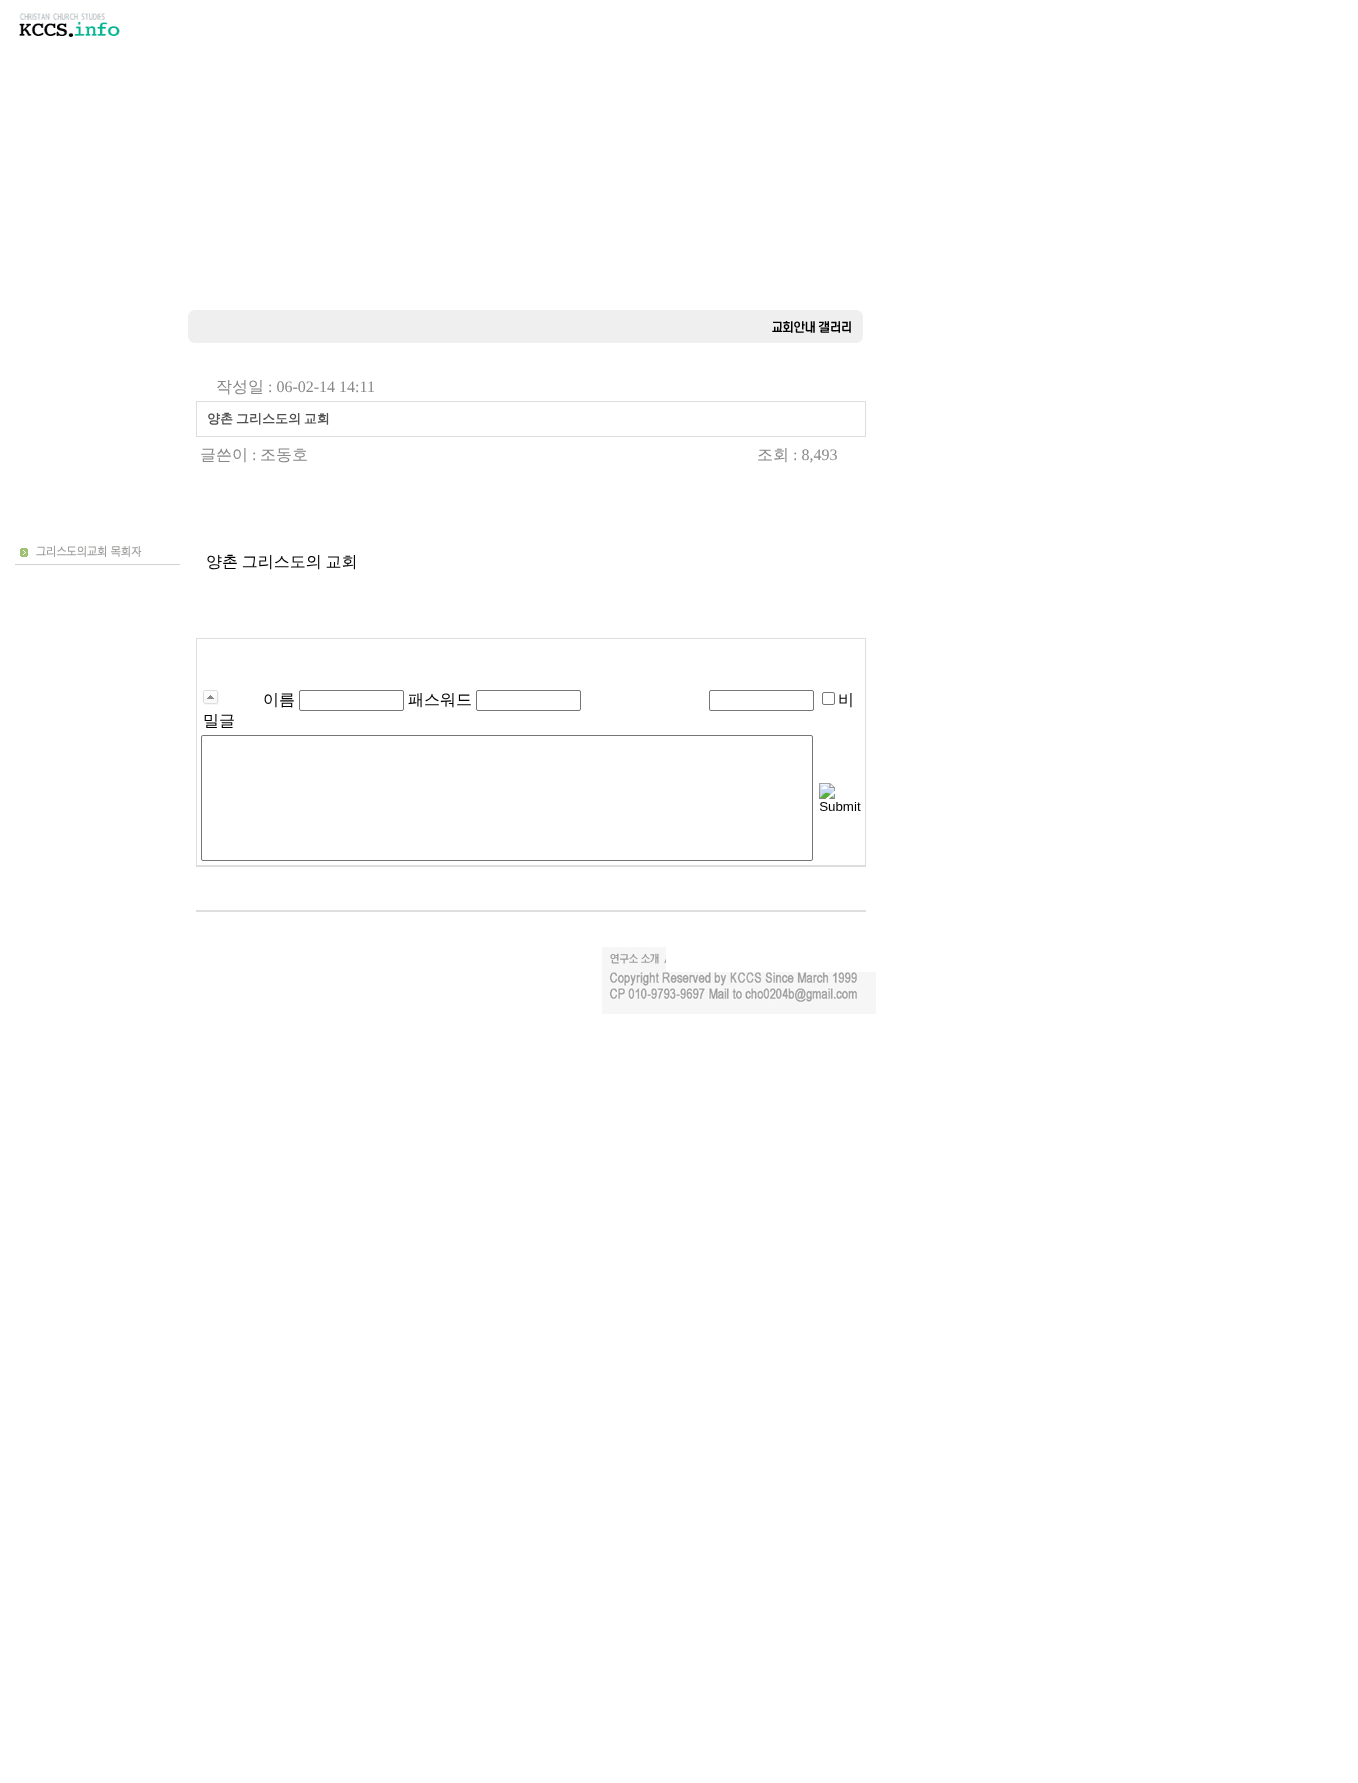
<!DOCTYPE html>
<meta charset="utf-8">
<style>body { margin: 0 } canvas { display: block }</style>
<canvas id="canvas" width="1358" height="1783"></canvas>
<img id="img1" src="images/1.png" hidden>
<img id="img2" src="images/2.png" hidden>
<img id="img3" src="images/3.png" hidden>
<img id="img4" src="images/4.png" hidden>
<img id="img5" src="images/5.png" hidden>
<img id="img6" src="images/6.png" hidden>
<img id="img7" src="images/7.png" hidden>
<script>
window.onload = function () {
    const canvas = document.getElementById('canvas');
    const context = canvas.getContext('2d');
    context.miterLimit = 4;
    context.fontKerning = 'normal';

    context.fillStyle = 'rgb(255, 255, 255)';
    context.fillRect(0, 0, 1358, 1783);
    context.drawImage(document.getElementById('img1'), 19, 13, 101, 26);
    context.drawImage(document.getElementById('img2'), 15, 545, 165, 20);
    context.drawImage(document.getElementById('img3'), 188, 310, 675, 33);
    context.strokeStyle = 'rgb(221, 221, 221)';
    context.strokeRect(196.5, 401.5, 669, 35);
    context.fillStyle = 'rgb(221, 221, 221)';
    context.fillRect(196, 638, 670, 229);
    context.fillStyle = 'rgb(255, 255, 255)';
    context.fillRect(197, 639, 668, 226);
    context.drawImage(document.getElementById('img4'), 203, 690, 16, 15);
    context.beginPath();
    context.roundRect(299.5, 690.5, 104, 20, 1.5);
    context.strokeStyle = 'rgb(118, 118, 118)';
    context.stroke();
    context.beginPath();
    context.roundRect(476.5, 690.5, 104, 20, 1.5);
    context.stroke();
    context.beginPath();
    context.roundRect(709.5, 690.5, 104, 20, 1.5);
    context.stroke();
    context.beginPath();
    context.roundRect(822.5, 692.5, 12, 12, 1.5);
    context.stroke();
    context.beginPath();
    context.roundRect(201.5, 735.5, 611, 125, 1.5);
    context.stroke();
    context.drawImage(document.getElementById('img5'), 819, 783, 42, 28);
    context.fillStyle = 'rgb(222, 222, 222)';
    context.fillRect(196, 910, 670, 2);
    context.drawImage(document.getElementById('img6'), 602, 947, 64, 25);
    context.drawImage(document.getElementById('img7'), 602, 972, 274, 42);
    context.font = '500 16px WenQuanYi Zen Hei';
    context.fillStyle = 'rgb(136, 136, 136)';
    context.fillText('작성일', 216, 392);
    context.font = '16px Liberation Serif';
    context.fillText(': 06-02-14 14:11', 268, 392);
    context.wordSpacing = '-1px';
    context.font = 'bold 13px WenQuanYi Zen Hei';
    context.fillStyle = 'rgb(80, 80, 80)';
    context.fillText('양촌 그리스도의 교회', 207, 423);
    context.wordSpacing = '0px';
    context.font = '500 16px WenQuanYi Zen Hei';
    context.fillStyle = 'rgb(136, 136, 136)';
    context.fillText('글쓴이', 200, 460);
    context.font = '16px Liberation Serif';
    context.fillText(':', 252, 460);
    context.font = '500 16px WenQuanYi Zen Hei';
    context.fillText('조동호', 260, 460);
    context.fillText('조회', 757, 460);
    context.font = '16px Liberation Serif';
    context.fillText(': 8,493', 793, 460);
    context.wordSpacing = '-1px';
    context.font = '500 16px WenQuanYi Zen Hei';
    context.fillStyle = 'rgb(0, 0, 0)';
    context.fillText('양촌 그리스도의 교회', 206, 567);
    context.wordSpacing = '0px';
    context.fillText('이름', 263, 705);
    context.fillText('패스워드', 408, 705);
    context.fillText('비', 838, 705);
    context.fillText('밀글', 203, 726);
};
</script>
